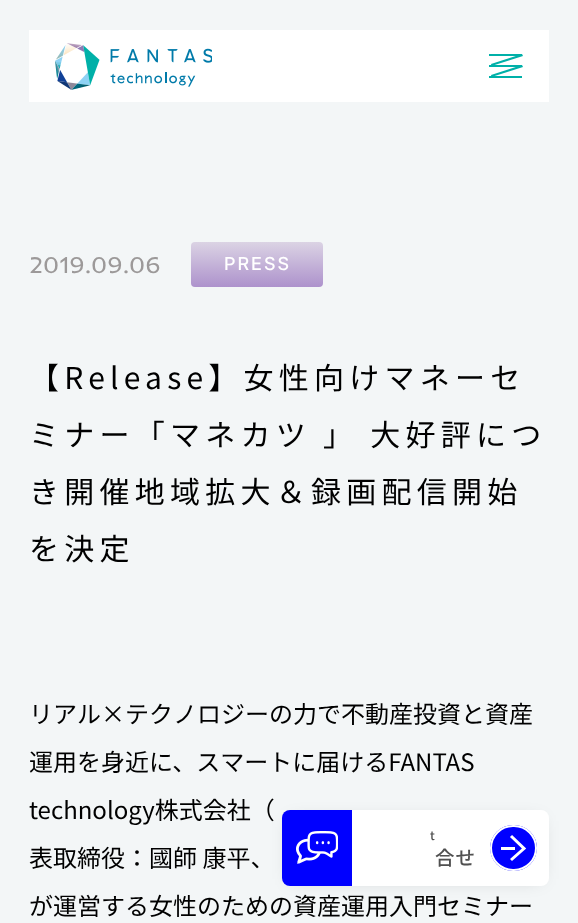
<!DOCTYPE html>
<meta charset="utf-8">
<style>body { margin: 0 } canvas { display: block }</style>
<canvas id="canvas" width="578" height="923"></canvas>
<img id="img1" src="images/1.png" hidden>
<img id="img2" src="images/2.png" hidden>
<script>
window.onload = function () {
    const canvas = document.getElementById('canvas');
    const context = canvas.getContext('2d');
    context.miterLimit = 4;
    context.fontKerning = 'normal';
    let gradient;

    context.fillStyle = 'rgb(243, 246, 247)';
    context.fillRect(0, 0, 578, 923);
    context.fillStyle = 'rgb(255, 255, 255)';
    context.fillRect(29, 30, 520, 72);
    context.drawImage(document.getElementById('img1'), 55, 43, 157, 47);
    context.fillStyle = 'rgb(0, 176, 168)';
    context.fillRect(489, 54, 33, 2);
    context.beginPath();
    context.moveTo(491, 64);
    context.lineTo(522, 54);
    context.lineTo(523, 56);
    context.lineTo(491.5, 66);
    context.closePath();
    context.fill();
    context.fillRect(489, 65, 33, 2);
    context.beginPath();
    context.moveTo(491, 75);
    context.lineTo(522, 65);
    context.lineTo(523, 67);
    context.lineTo(491.5, 77);
    context.closePath();
    context.fill();
    context.fillRect(489, 76, 33, 2);
    gradient = context.createLinearGradient(257, 242, 257, 287);
    gradient.addColorStop(0, 'rgb(219, 211, 228)');
    gradient.addColorStop(1, 'rgb(173, 146, 204)');
    context.fillStyle = gradient;
    context.beginPath();
    context.roundRect(191, 242, 132, 45, 4);
    context.fill();
    context.fillStyle = 'rgba(0, 0, 0, 0.2)';
    context.filter = 'blur(9px)';
    context.beginPath();
    context.rect(291, 821, 249, 58);
    context.fill();
    context.filter = 'none';
    context.fillStyle = 'rgb(0, 0, 255)';
    context.beginPath();
    context.roundRect(282, 810, 70, 76, [8, 0, 0, 8]);
    context.fill();
    context.drawImage(document.getElementById('img2'), 296, 831, 42, 33);
    context.fillStyle = 'rgb(255, 255, 255)';
    context.beginPath();
    context.roundRect(352, 810, 197, 76, [0, 8, 8, 0]);
    context.fill();
    context.fillStyle = 'rgb(0, 0, 255)';
    context.beginPath();
    context.roundRect(490, 825, 47, 46, 23);
    context.fill();
    context.fillStyle = 'rgb(255, 255, 255)';
    context.fillRect(501, 847, 14, 3);
    context.beginPath();
    context.moveTo(511, 836);
    context.lineTo(524, 848.5);
    context.lineTo(511, 860);
    context.strokeStyle = 'rgb(255, 255, 255)';
    context.lineWidth = 3;
    context.stroke();
    context.beginPath();
    context.roundRect(491, 826, 45, 44, 22);
    context.lineWidth = 2;
    context.stroke();
    context.font = '24px Inder';
    context.fillStyle = 'rgb(156, 153, 153)';
    context.fillText('2019.09.06', 29, 273);
    context.letterSpacing = '2px';
    context.font = '500 18px Inter';
    context.fillStyle = 'rgb(255, 255, 255)';
    context.fillText('PRESS', 224, 270);
    context.letterSpacing = '5.25px';
    context.font = '30px Noto Sans JP';
    context.fillStyle = 'rgb(0, 0, 0)';
    context.fillText('【Release】女性向けマネーセ', 29, 389);
    context.fillText('ミナー「マネカツ 」 大好評につ', 29, 446);
    context.fillText('き開催地域拡大＆録画配信開始', 29, 503);
    context.fillText('を決定', 29, 560);
    context.letterSpacing = '0px';
    context.font = '24px Noto Sans JP';
    context.fillText('リアル×テクノロジーの力で不動産投資と資産', 29, 723);
    context.fillText('運用を身近に、スマートに届けるFANTAS', 29, 771);
    context.fillText('technology株式会社（', 29, 819);
    context.fillText('表取締役：國師 康平、', 29, 867);
    context.fillText('が運営する女性のための資産運用入門セミナー', 29, 915);
    context.letterSpacing = '3px';
    context.font = '500 12px Noto Sans JP';
    gradient = context.createLinearGradient(373, 835, 476, 835);
    gradient.addColorStop(0.5, 'rgb(255, 255, 255)');
    gradient.addColorStop(0.5, 'rgb(80, 80, 80)');
    context.fillStyle = gradient;
    context.fillText('t', 430, 840);
    context.letterSpacing = '1px';
    context.font = '500 19.5px Noto Sans JP';
    gradient = context.createLinearGradient(373, 857, 476, 857);
    gradient.addColorStop(0.5, 'rgb(255, 255, 255)');
    gradient.addColorStop(0.5, 'rgb(80, 80, 80)');
    context.fillStyle = gradient;
    context.fillText('合せ', 435, 865);
};
</script>
